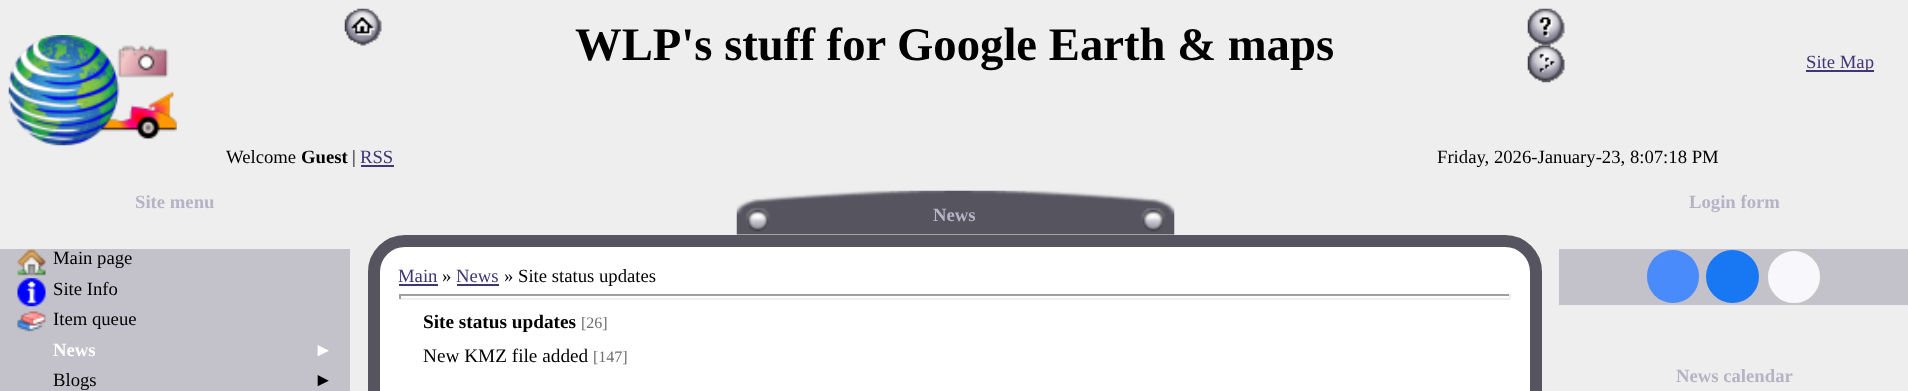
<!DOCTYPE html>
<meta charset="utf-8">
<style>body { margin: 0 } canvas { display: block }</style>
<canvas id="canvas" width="1908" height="391"></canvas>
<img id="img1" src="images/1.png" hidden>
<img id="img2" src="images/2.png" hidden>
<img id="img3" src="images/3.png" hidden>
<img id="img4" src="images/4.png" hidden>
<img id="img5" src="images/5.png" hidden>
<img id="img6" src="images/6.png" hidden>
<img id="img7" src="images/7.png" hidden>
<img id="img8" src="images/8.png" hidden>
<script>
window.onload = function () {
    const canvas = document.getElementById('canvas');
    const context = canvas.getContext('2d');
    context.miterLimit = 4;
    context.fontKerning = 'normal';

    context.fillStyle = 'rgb(238, 238, 238)';
    context.fillRect(0, 0, 1908, 391);
    context.drawImage(document.getElementById('img1'), 8, 35, 169, 111);
    context.drawImage(document.getElementById('img2'), 344, 8, 38, 38);
    context.drawImage(document.getElementById('img3'), 1527, 8, 38, 38);
    context.drawImage(document.getElementById('img4'), 1527, 45, 38, 38);
    context.fillStyle = 'rgb(65, 53, 116)';
    context.fillRect(1806, 70, 68, 2);
    context.fillRect(361, 165, 33, 2);
    context.fillStyle = 'rgb(195, 193, 202)';
    context.fillRect(0, 249, 350, 142);
    context.drawImage(document.getElementById('img5'), 17, 248, 29, 28);
    context.drawImage(document.getElementById('img6'), 17, 278, 29, 29);
    context.drawImage(document.getElementById('img7'), 17, 311, 29, 21);
    context.drawImage(document.getElementById('img8'), 736, 190, 439, 45);
    context.fillStyle = 'rgb(255, 255, 255)';
    context.beginPath();
    context.roundRect(374, 241, 1162, 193, 31);
    context.fill();
    context.strokeStyle = 'rgb(86, 84, 95)';
    context.lineWidth = 12;
    context.stroke();
    context.fillStyle = 'rgb(65, 53, 116)';
    context.fillRect(399, 284, 39, 2);
    context.fillRect(457, 284, 42, 2);
    context.fillStyle = 'rgb(159, 159, 159)';
    context.fillRect(399, 294, 1111, 2);
    context.fillStyle = 'rgb(238, 238, 238)';
    context.fillRect(1509, 294, 2, 5);
    context.fillRect(399, 298, 1111, 2);
    context.fillStyle = 'rgb(159, 159, 159)';
    context.fillRect(399, 294, 2, 5);
    context.fillStyle = 'rgb(195, 193, 202)';
    context.fillRect(1559, 249, 349, 56);
    context.fillStyle = 'rgb(73, 139, 250)';
    context.beginPath();
    context.roundRect(1647, 250, 52, 53, 26);
    context.fill();
    context.fillStyle = 'rgb(24, 119, 242)';
    context.beginPath();
    context.arc(1732.5, 276.5, 26.5, 0, 2 * Math.PI);
    context.fill();
    context.fillStyle = 'rgb(248, 248, 252)';
    context.beginPath();
    context.arc(1794, 277, 27, 0, 2 * Math.PI);
    context.fill();
    context.strokeStyle = 'rgb(196, 196, 196)';
    context.lineWidth = 2;
    context.stroke();
    context.font = 'bold 46.7px Liberation Serif';
    context.fillStyle = 'rgb(0, 0, 0)';
    context.fillText('WLP\'s stuff for Google Earth & maps', 575, 60);
    context.font = '18.7px Liberation Serif';
    context.fillStyle = 'rgb(65, 53, 116)';
    context.fillText('Site Map', 1806, 68);
    context.fillStyle = 'rgb(0, 0, 0)';
    context.fillText('Welcome', 226, 163);
    context.font = 'bold 18.7px Liberation Serif';
    context.fillText('Guest', 301, 163);
    context.font = '18.7px Liberation Serif';
    context.fillText('|', 352, 163);
    context.fillStyle = 'rgb(65, 53, 116)';
    context.fillText('RSS', 360, 163);
    context.fillStyle = 'rgb(0, 0, 0)';
    context.fillText('Friday, 2026-January-23, 8:07:18 PM', 1437, 163);
    context.font = 'bold 18.7px Liberation Serif';
    context.fillStyle = 'rgb(183, 179, 197)';
    context.fillText('Site menu', 135, 208);
    context.font = '18.7px Liberation Serif';
    context.fillStyle = 'rgb(0, 0, 0)';
    context.fillText('Main page', 53, 264);
    context.fillText('Site Info', 53, 295);
    context.fillText('Item queue', 53, 325);
    context.font = 'bold 18.7px Liberation Serif';
    context.fillStyle = 'rgb(255, 255, 255)';
    context.fillText('News', 53, 356);
    context.fillText('►', 314, 356);
    context.font = '18.7px Liberation Serif';
    context.fillStyle = 'rgb(0, 0, 0)';
    context.fillText('Blogs', 53, 386);
    context.fillText('►', 314, 386);
    context.font = 'bold 18.7px Liberation Serif';
    context.fillStyle = 'rgb(183, 179, 197)';
    context.fillText('News', 933, 221);
    context.font = '18.7px Liberation Serif';
    context.fillStyle = 'rgb(65, 53, 116)';
    context.fillText('Main', 398, 282);
    context.fillStyle = 'rgb(0, 0, 0)';
    context.fillText('»', 442, 282);
    context.fillStyle = 'rgb(65, 53, 116)';
    context.fillText('News', 456, 282);
    context.fillStyle = 'rgb(0, 0, 0)';
    context.fillText('» Site status updates', 504, 282);
    context.font = 'bold 19.25px Liberation Serif';
    context.fillText('Site status updates', 423, 328);
    context.font = '16px Liberation Serif';
    context.fillStyle = 'rgb(110, 110, 110)';
    context.fillText('[26]', 581, 328);
    context.font = '19.25px Liberation Serif';
    context.fillStyle = 'rgb(0, 0, 0)';
    context.fillText('New KMZ file added', 423, 362);
    context.font = '16px Liberation Serif';
    context.fillStyle = 'rgb(110, 110, 110)';
    context.fillText('[147]', 593, 362);
    context.font = 'bold 18.7px Liberation Serif';
    context.fillStyle = 'rgb(183, 179, 197)';
    context.fillText('Login form', 1689, 208);
    context.fillText('News calendar', 1676, 382);
};
</script>
